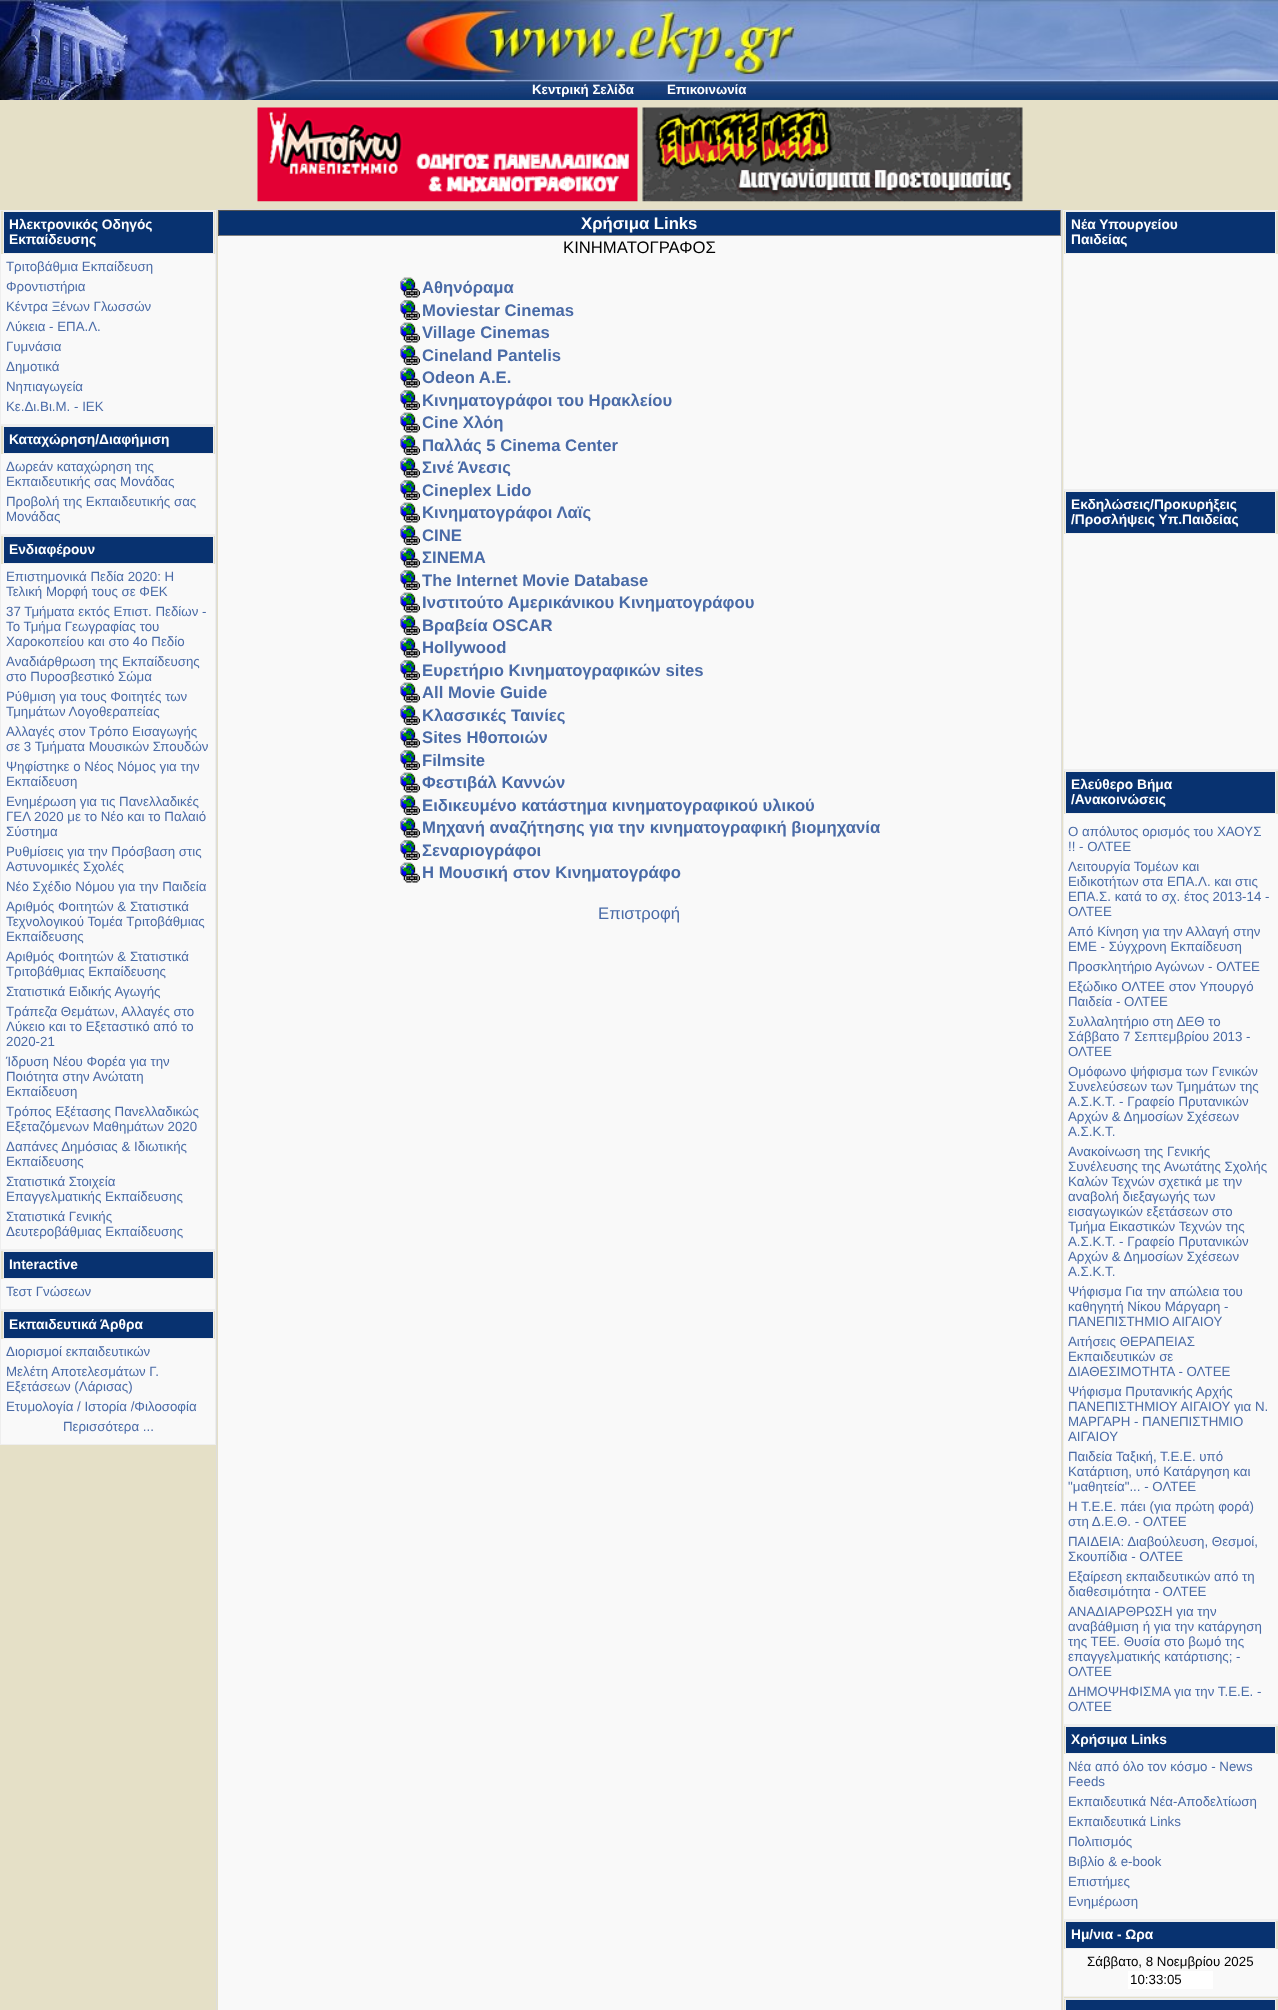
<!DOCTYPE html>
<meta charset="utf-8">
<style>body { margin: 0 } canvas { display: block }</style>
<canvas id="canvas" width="1278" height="2010"></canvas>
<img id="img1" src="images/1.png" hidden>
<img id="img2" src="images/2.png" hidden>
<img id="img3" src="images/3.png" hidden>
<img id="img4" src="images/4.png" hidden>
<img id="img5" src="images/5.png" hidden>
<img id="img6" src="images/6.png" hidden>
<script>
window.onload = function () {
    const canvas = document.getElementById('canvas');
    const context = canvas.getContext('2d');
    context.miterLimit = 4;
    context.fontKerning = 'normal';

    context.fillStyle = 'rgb(229, 224, 199)';
    context.fillRect(0, 0, 1278, 2010);
    context.drawImage(document.getElementById('img1'), 0, 0, 1278, 100);
    context.drawImage(document.getElementById('img2'), 257, 107, 381, 95);
    context.drawImage(document.getElementById('img3'), 642, 107, 381, 95);
    context.fillStyle = 'rgb(238, 238, 238)';
    context.fillRect(0, 210, 216, 1);
    context.fillRect(215, 210, 1, 215);
    context.fillRect(0, 424, 216, 2);
    context.fillRect(0, 210, 1, 215);
    context.fillStyle = 'rgb(8, 50, 112)';
    context.fillRect(4, 212, 209, 41);
    context.fillStyle = 'rgb(238, 238, 238)';
    context.fillRect(3, 211, 211, 1);
    context.fillRect(213, 211, 1, 43);
    context.fillRect(3, 253, 211, 1);
    context.fillRect(3, 211, 1, 43);
    context.fillStyle = 'rgb(249, 249, 249)';
    context.fillRect(1, 254, 214, 170);
    context.fillStyle = 'rgb(238, 238, 238)';
    context.fillRect(215, 425, 1, 110);
    context.fillRect(0, 534, 216, 2);
    context.fillRect(0, 425, 1, 110);
    context.fillStyle = 'rgb(8, 50, 112)';
    context.fillRect(4, 427, 209, 26);
    context.fillStyle = 'rgb(238, 238, 238)';
    context.fillRect(3, 426, 211, 1);
    context.fillRect(213, 426, 1, 28);
    context.fillRect(3, 453, 211, 1);
    context.fillRect(3, 426, 1, 28);
    context.fillStyle = 'rgb(249, 249, 249)';
    context.fillRect(1, 454, 214, 80);
    context.fillStyle = 'rgb(238, 238, 238)';
    context.fillRect(215, 535, 1, 715);
    context.fillRect(0, 1249, 216, 2);
    context.fillRect(0, 535, 1, 715);
    context.fillStyle = 'rgb(8, 50, 112)';
    context.fillRect(4, 537, 209, 26);
    context.fillStyle = 'rgb(238, 238, 238)';
    context.fillRect(3, 536, 211, 1);
    context.fillRect(213, 536, 1, 28);
    context.fillRect(3, 563, 211, 1);
    context.fillRect(3, 536, 1, 28);
    context.fillStyle = 'rgb(249, 249, 249)';
    context.fillRect(1, 564, 214, 685);
    context.fillStyle = 'rgb(238, 238, 238)';
    context.fillRect(215, 1250, 1, 60);
    context.fillRect(0, 1309, 216, 2);
    context.fillRect(0, 1250, 1, 60);
    context.fillStyle = 'rgb(8, 50, 112)';
    context.fillRect(4, 1252, 209, 26);
    context.fillStyle = 'rgb(238, 238, 238)';
    context.fillRect(3, 1251, 211, 1);
    context.fillRect(213, 1251, 1, 28);
    context.fillRect(3, 1278, 211, 1);
    context.fillRect(3, 1251, 1, 28);
    context.fillStyle = 'rgb(249, 249, 249)';
    context.fillRect(1, 1279, 214, 30);
    context.fillStyle = 'rgb(238, 238, 238)';
    context.fillRect(215, 1310, 1, 135);
    context.fillRect(0, 1444, 216, 1);
    context.fillRect(0, 1310, 1, 135);
    context.fillStyle = 'rgb(8, 50, 112)';
    context.fillRect(4, 1312, 209, 26);
    context.fillStyle = 'rgb(238, 238, 238)';
    context.fillRect(3, 1311, 211, 1);
    context.fillRect(213, 1311, 1, 28);
    context.fillRect(3, 1338, 211, 1);
    context.fillRect(3, 1311, 1, 28);
    context.fillStyle = 'rgb(249, 249, 249)';
    context.fillRect(1, 1339, 214, 105);
    context.fillRect(218, 236, 843, 1774);
    context.fillStyle = 'rgb(221, 221, 221)';
    context.fillRect(216, 209, 847, 1);
    context.fillRect(1061, 209, 1, 1801);
    context.fillRect(216, 209, 1, 1801);
    context.fillStyle = 'rgb(8, 50, 112)';
    context.fillRect(219, 211, 841, 24);
    context.fillStyle = 'rgb(85, 85, 85)';
    context.fillRect(218, 210, 843, 1);
    context.fillStyle = 'rgb(128, 128, 128)';
    context.fillRect(1060, 210, 1, 26);
    context.fillRect(218, 235, 843, 1);
    context.fillStyle = 'rgb(85, 85, 85)';
    context.fillRect(218, 210, 1, 26);
    context.drawImage(document.getElementById('img4'), 400, 277, 20, 21);
    context.drawImage(document.getElementById('img5'), 400, 300, 20, 20);
    context.drawImage(document.getElementById('img4'), 400, 322, 20, 21);
    context.drawImage(document.getElementById('img5'), 400, 345, 20, 20);
    context.drawImage(document.getElementById('img4'), 400, 367, 20, 21);
    context.drawImage(document.getElementById('img5'), 400, 390, 20, 20);
    context.drawImage(document.getElementById('img4'), 400, 412, 20, 21);
    context.drawImage(document.getElementById('img5'), 400, 435, 20, 20);
    context.drawImage(document.getElementById('img4'), 400, 457, 20, 21);
    context.drawImage(document.getElementById('img5'), 400, 480, 20, 20);
    context.drawImage(document.getElementById('img4'), 400, 502, 20, 21);
    context.drawImage(document.getElementById('img5'), 400, 525, 20, 20);
    context.drawImage(document.getElementById('img4'), 400, 547, 20, 21);
    context.drawImage(document.getElementById('img5'), 400, 570, 20, 20);
    context.drawImage(document.getElementById('img4'), 400, 592, 20, 21);
    context.drawImage(document.getElementById('img5'), 400, 615, 20, 20);
    context.drawImage(document.getElementById('img4'), 400, 637, 20, 21);
    context.drawImage(document.getElementById('img5'), 400, 660, 20, 20);
    context.drawImage(document.getElementById('img4'), 400, 682, 20, 21);
    context.drawImage(document.getElementById('img5'), 400, 705, 20, 20);
    context.drawImage(document.getElementById('img4'), 400, 727, 20, 21);
    context.drawImage(document.getElementById('img5'), 400, 750, 20, 20);
    context.drawImage(document.getElementById('img6'), 400, 772, 20, 21);
    context.drawImage(document.getElementById('img5'), 400, 795, 20, 20);
    context.drawImage(document.getElementById('img4'), 400, 817, 20, 21);
    context.drawImage(document.getElementById('img5'), 400, 840, 20, 20);
    context.drawImage(document.getElementById('img4'), 400, 862, 20, 21);
    context.fillStyle = 'rgb(238, 238, 238)';
    context.fillRect(1063, 210, 215, 1);
    context.fillRect(1063, 489, 215, 2);
    context.fillRect(1063, 210, 1, 280);
    context.fillStyle = 'rgb(8, 50, 112)';
    context.fillRect(1066, 212, 209, 41);
    context.fillStyle = 'rgb(238, 238, 238)';
    context.fillRect(1065, 211, 211, 1);
    context.fillRect(1275, 211, 1, 43);
    context.fillRect(1065, 253, 211, 1);
    context.fillRect(1065, 211, 1, 43);
    context.fillStyle = 'rgb(249, 249, 249)';
    context.fillRect(1064, 254, 214, 235);
    context.fillStyle = 'rgb(238, 238, 238)';
    context.fillRect(1063, 769, 215, 2);
    context.fillRect(1063, 490, 1, 280);
    context.fillStyle = 'rgb(8, 50, 112)';
    context.fillRect(1066, 492, 209, 41);
    context.fillStyle = 'rgb(238, 238, 238)';
    context.fillRect(1065, 491, 211, 1);
    context.fillRect(1275, 491, 1, 43);
    context.fillRect(1065, 533, 211, 1);
    context.fillRect(1065, 491, 1, 43);
    context.fillStyle = 'rgb(249, 249, 249)';
    context.fillRect(1064, 534, 214, 235);
    context.fillStyle = 'rgb(238, 238, 238)';
    context.fillRect(1063, 1724, 215, 2);
    context.fillRect(1063, 770, 1, 955);
    context.fillStyle = 'rgb(8, 50, 112)';
    context.fillRect(1066, 772, 209, 41);
    context.fillStyle = 'rgb(238, 238, 238)';
    context.fillRect(1065, 771, 211, 1);
    context.fillRect(1275, 771, 1, 43);
    context.fillRect(1065, 813, 211, 1);
    context.fillRect(1065, 771, 1, 43);
    context.fillStyle = 'rgb(249, 249, 249)';
    context.fillRect(1064, 814, 214, 910);
    context.fillStyle = 'rgb(238, 238, 238)';
    context.fillRect(1063, 1919, 215, 2);
    context.fillRect(1063, 1725, 1, 195);
    context.fillStyle = 'rgb(8, 50, 112)';
    context.fillRect(1066, 1727, 209, 26);
    context.fillStyle = 'rgb(238, 238, 238)';
    context.fillRect(1065, 1726, 211, 1);
    context.fillRect(1275, 1726, 1, 28);
    context.fillRect(1065, 1753, 211, 1);
    context.fillRect(1065, 1726, 1, 28);
    context.fillStyle = 'rgb(249, 249, 249)';
    context.fillRect(1064, 1754, 214, 165);
    context.fillStyle = 'rgb(238, 238, 238)';
    context.fillRect(1063, 1996, 215, 1);
    context.fillRect(1063, 1920, 1, 78);
    context.fillStyle = 'rgb(8, 50, 112)';
    context.fillRect(1066, 1922, 209, 26);
    context.fillStyle = 'rgb(238, 238, 238)';
    context.fillRect(1065, 1921, 211, 1);
    context.fillRect(1275, 1921, 1, 28);
    context.fillRect(1065, 1948, 211, 1);
    context.fillRect(1065, 1921, 1, 28);
    context.fillStyle = 'rgb(249, 249, 249)';
    context.fillRect(1064, 1949, 214, 47);
    context.fillStyle = 'rgb(255, 255, 255)';
    context.fillRect(1128, 1971, 85, 18);
    context.fillStyle = 'rgb(238, 238, 238)';
    context.fillRect(1063, 1998, 215, 1);
    context.fillRect(1063, 1998, 1, 12);
    context.fillStyle = 'rgb(8, 50, 112)';
    context.fillRect(1066, 2000, 209, 10);
    context.fillStyle = 'rgb(238, 238, 238)';
    context.fillRect(1065, 1999, 211, 1);
    context.fillRect(1275, 1999, 1, 11);
    context.fillRect(1065, 1999, 1, 11);
    context.font = 'bold 13.3px Liberation Sans';
    context.fillStyle = 'rgb(255, 255, 255)';
    context.fillText('Κεντρική Σελίδα', 532, 94);
    context.fillText('Επικοινωνία', 667, 94);
    context.font = 'bold 13.75px Liberation Sans';
    context.fillText('Ηλεκτρονικός Οδηγός', 9, 229);
    context.fillText('Εκπαίδευσης', 9, 244);
    context.font = '13.3px Liberation Sans';
    context.fillStyle = 'rgb(74, 107, 167)';
    context.fillText('Τριτοβάθμια Εκπαίδευση', 6, 271);
    context.fillText('Φροντιστήρια', 6, 291);
    context.fillText('Κέντρα Ξένων Γλωσσών', 6, 311);
    context.fillText('Λύκεια - ΕΠΑ.Λ.', 6, 331);
    context.fillText('Γυμνάσια', 6, 351);
    context.fillText('Δημοτικά', 6, 371);
    context.fillText('Νηπιαγωγεία', 6, 391);
    context.fillText('Κε.Δι.Βι.Μ. - ΙΕΚ', 6, 411);
    context.font = 'bold 13.75px Liberation Sans';
    context.fillStyle = 'rgb(255, 255, 255)';
    context.fillText('Καταχώρηση/Διαφήμιση', 9, 444);
    context.font = '13.3px Liberation Sans';
    context.fillStyle = 'rgb(74, 107, 167)';
    context.fillText('Δωρεάν καταχώρηση της', 6, 471);
    context.fillText('Εκπαιδευτικής σας Μονάδας', 6, 486);
    context.fillText('Προβολή της Εκπαιδευτικής σας', 6, 506);
    context.fillText('Μονάδας', 6, 521);
    context.font = 'bold 13.75px Liberation Sans';
    context.fillStyle = 'rgb(255, 255, 255)';
    context.fillText('Ενδιαφέρουν', 9, 554);
    context.font = '13.3px Liberation Sans';
    context.fillStyle = 'rgb(74, 107, 167)';
    context.fillText('Επιστημονικά Πεδία 2020: Η', 6, 581);
    context.fillText('Τελική Μορφή τους σε ΦΕΚ', 6, 596);
    context.fillText('37 Τμήματα εκτός Επιστ. Πεδίων -', 6, 616);
    context.fillText('Το Τμήμα Γεωγραφίας του', 6, 631);
    context.fillText('Χαροκοπείου και στο 4ο Πεδίο', 6, 646);
    context.fillText('Αναδιάρθρωση της Εκπαίδευσης', 6, 666);
    context.fillText('στο Πυροσβεστικό Σώμα', 6, 681);
    context.fillText('Ρύθμιση για τους Φοιτητές των', 6, 701);
    context.fillText('Τμημάτων Λογοθεραπείας', 6, 716);
    context.fillText('Αλλαγές στον Τρόπο Εισαγωγής', 6, 736);
    context.fillText('σε 3 Τμήματα Μουσικών Σπουδών', 6, 751);
    context.fillText('Ψηφίστηκε ο Νέος Νόμος για την', 6, 771);
    context.fillText('Εκπαίδευση', 6, 786);
    context.fillText('Ενημέρωση για τις Πανελλαδικές', 6, 806);
    context.fillText('ΓΕΛ 2020 με το Νέο και το Παλαιό', 6, 821);
    context.fillText('Σύστημα', 6, 836);
    context.fillText('Ρυθμίσεις για την Πρόσβαση στις', 6, 856);
    context.fillText('Αστυνομικές Σχολές', 6, 871);
    context.fillText('Νέο Σχέδιο Νόμου για την Παιδεία', 6, 891);
    context.fillText('Αριθμός Φοιτητών & Στατιστικά', 6, 911);
    context.fillText('Τεχνολογικού Τομέα Τριτοβάθμιας', 6, 926);
    context.fillText('Εκπαίδευσης', 6, 941);
    context.fillText('Αριθμός Φοιτητών & Στατιστικά', 6, 961);
    context.fillText('Τριτοβάθμιας Εκπαίδευσης', 6, 976);
    context.fillText('Στατιστικά Ειδικής Αγωγής', 6, 996);
    context.fillText('Τράπεζα Θεμάτων, Αλλαγές στο', 6, 1016);
    context.fillText('Λύκειο και το Εξεταστικό από το', 6, 1031);
    context.fillText('2020-21', 6, 1046);
    context.fillText('Ίδρυση Νέου Φορέα για την', 6, 1066);
    context.fillText('Ποιότητα στην Ανώτατη', 6, 1081);
    context.fillText('Εκπαίδευση', 6, 1096);
    context.fillText('Τρόπος Εξέτασης Πανελλαδικώς', 6, 1116);
    context.fillText('Εξεταζόμενων Μαθημάτων 2020', 6, 1131);
    context.fillText('Δαπάνες Δημόσιας & Ιδιωτικής', 6, 1151);
    context.fillText('Εκπαίδευσης', 6, 1166);
    context.fillText('Στατιστικά Στοιχεία', 6, 1186);
    context.fillText('Επαγγελματικής Εκπαίδευσης', 6, 1201);
    context.fillText('Στατιστικά Γενικής', 6, 1221);
    context.fillText('Δευτεροβάθμιας Εκπαίδευσης', 6, 1236);
    context.font = 'bold 13.75px Liberation Sans';
    context.fillStyle = 'rgb(255, 255, 255)';
    context.fillText('Interactive', 9, 1269);
    context.font = '13.3px Liberation Sans';
    context.fillStyle = 'rgb(74, 107, 167)';
    context.fillText('Τεστ Γνώσεων', 6, 1296);
    context.font = 'bold 13.75px Liberation Sans';
    context.fillStyle = 'rgb(255, 255, 255)';
    context.fillText('Εκπαιδευτικά Άρθρα', 9, 1329);
    context.font = '13.3px Liberation Sans';
    context.fillStyle = 'rgb(74, 107, 167)';
    context.fillText('Διορισμοί εκπαιδευτικών', 6, 1356);
    context.fillText('Μελέτη Αποτελεσμάτων Γ.', 6, 1376);
    context.fillText('Εξετάσεων (Λάρισας)', 6, 1391);
    context.fillText('Ετυμολογία / Ιστορία /Φιλοσοφία', 6, 1411);
    context.fillText('Περισσότερα ...', 63, 1431);
    context.font = 'bold 16.7px Liberation Sans';
    context.fillStyle = 'rgb(255, 255, 255)';
    context.fillText('Χρήσιμα Links', 581, 229);
    context.font = '16.7px Liberation Sans';
    context.fillStyle = 'rgb(0, 0, 0)';
    context.fillText('ΚΙΝΗΜΑΤΟΓΡΑΦΟΣ', 563, 253);
    context.font = 'bold 16.7px Liberation Sans';
    context.fillStyle = 'rgb(74, 107, 167)';
    context.fillText('Αθηνόραμα', 422, 293);
    context.fillText('Moviestar Cinemas', 422, 316);
    context.fillText('Village Cinemas', 422, 338);
    context.fillText('Cineland Pantelis', 422, 361);
    context.fillText('Odeon A.E.', 422, 383);
    context.fillText('Κινηματογράφοι του Ηρακλείου', 422, 406);
    context.fillText('Cine Χλόη', 422, 428);
    context.fillText('Παλλάς 5 Cinema Center', 422, 451);
    context.fillText('Σινέ Άνεσις', 422, 473);
    context.fillText('Cineplex Lido', 422, 496);
    context.fillText('Kινηματογράφοι Λαϊς', 422, 518);
    context.fillText('CINE', 422, 541);
    context.fillText('ΣΙΝΕΜΑ', 422, 563);
    context.fillText('The Internet Movie Database', 422, 586);
    context.fillText('Iνστιτούτο Αμερικάνικου Κινηματογράφου', 422, 608);
    context.fillText('Βραβεία OSCAR', 422, 631);
    context.fillText('Hollywood', 422, 653);
    context.fillText('Ευρετήριο Κινηματογραφικών sites', 422, 676);
    context.fillText('All Movie Guide', 422, 698);
    context.fillText('Κλασσικές Ταινίες', 422, 721);
    context.fillText('Sites Ηθοποιών', 422, 743);
    context.fillText('Filmsite', 422, 766);
    context.fillText('Φεστιβάλ Καννών', 422, 788);
    context.fillText('Ειδικευμένο κατάστημα κινηματογραφικού υλικού', 422, 811);
    context.fillText('Μηχανή αναζήτησης για την κινηματογραφική βιομηχανία', 422, 833);
    context.fillText('Σεναριογράφοι', 422, 856);
    context.fillText('Η Μουσική στον Κινηματογράφο', 422, 878);
    context.font = '16.7px Liberation Sans';
    context.fillText('Επιστροφή', 598, 919);
    context.font = 'bold 13.75px Liberation Sans';
    context.fillStyle = 'rgb(255, 255, 255)';
    context.fillText('Νέα Υπουργείου', 1071, 229);
    context.fillText('Παιδείας', 1071, 244);
    context.fillText('Εκδηλώσεις/Προκυρήξεις', 1071, 509);
    context.fillText('/Προσλήψεις Υπ.Παιδείας', 1071, 524);
    context.fillText('Ελεύθερο Βήμα', 1071, 789);
    context.fillText('/Ανακοινώσεις', 1071, 804);
    context.font = '13.3px Liberation Sans';
    context.fillStyle = 'rgb(74, 107, 167)';
    context.fillText('Ο απόλυτος ορισμός του ΧΑΟΥΣ', 1068, 836);
    context.fillText('!! - ΟΛΤΕΕ', 1068, 851);
    context.fillText('Λειτουργία Τομέων και', 1068, 871);
    context.fillText('Ειδικοτήτων στα ΕΠΑ.Λ. και στις', 1068, 886);
    context.fillText('ΕΠΑ.Σ. κατά το σχ. έτος 2013-14 -', 1068, 901);
    context.fillText('ΟΛΤΕΕ', 1068, 916);
    context.fillText('Από Κίνηση για την Αλλαγή στην', 1068, 936);
    context.fillText('ΕΜΕ - Σύγχρονη Εκπαίδευση', 1068, 951);
    context.fillText('Προσκλητήριο Αγώνων - ΟΛΤΕΕ', 1068, 971);
    context.fillText('Εξώδικο ΟΛΤΕΕ στον Υπουργό', 1068, 991);
    context.fillText('Παιδεία - ΟΛΤΕΕ', 1068, 1006);
    context.fillText('Συλλαλητήριο στη ΔΕΘ το', 1068, 1026);
    context.fillText('Σάββατο 7 Σεπτεμβρίου 2013 -', 1068, 1041);
    context.fillText('ΟΛΤΕΕ', 1068, 1056);
    context.fillText('Oμόφωνο ψήφισμα των Γενικών', 1068, 1076);
    context.fillText('Συνελεύσεων των Τμημάτων της', 1068, 1091);
    context.fillText('Α.Σ.Κ.Τ. - Γραφείο Πρυτανικών', 1068, 1106);
    context.fillText('Αρχών & Δημοσίων Σχέσεων', 1068, 1121);
    context.fillText('Α.Σ.Κ.Τ.', 1068, 1136);
    context.fillText('Ανακοίνωση της Γενικής', 1068, 1156);
    context.fillText('Συνέλευσης της Ανωτάτης Σχολής', 1068, 1171);
    context.fillText('Καλών Τεχνών σχετικά με την', 1068, 1186);
    context.fillText('αναβολή διεξαγωγής των', 1068, 1201);
    context.fillText('εισαγωγικών εξετάσεων στο', 1068, 1216);
    context.fillText('Τμήμα Εικαστικών Τεχνών της', 1068, 1231);
    context.fillText('Α.Σ.Κ.Τ. - Γραφείο Πρυτανικών', 1068, 1246);
    context.fillText('Αρχών & Δημοσίων Σχέσεων', 1068, 1261);
    context.fillText('Α.Σ.Κ.Τ.', 1068, 1276);
    context.fillText('Ψήφισμα Για την απώλεια του', 1068, 1296);
    context.fillText('καθηγητή Νίκου Μάργαρη -', 1068, 1311);
    context.fillText('ΠΑΝΕΠΙΣΤΗΜΙΟ ΑΙΓΑΙΟΥ', 1068, 1326);
    context.fillText('Αιτήσεις ΘΕΡΑΠΕΙΑΣ', 1068, 1346);
    context.fillText('Εκπαιδευτικών σε', 1068, 1361);
    context.fillText('ΔΙΑΘΕΣΙΜΟΤΗΤΑ - ΟΛΤΕΕ', 1068, 1376);
    context.fillText('Ψήφισμα Πρυτανικής Αρχής', 1068, 1396);
    context.fillText('ΠΑΝΕΠΙΣΤΗΜΙΟΥ ΑΙΓΑΙΟΥ για Ν.', 1068, 1411);
    context.fillText('ΜΑΡΓΑΡΗ - ΠΑΝΕΠΙΣΤΗΜΙΟ', 1068, 1426);
    context.fillText('ΑΙΓΑΙΟΥ', 1068, 1441);
    context.fillText('Παιδεία Ταξική, Τ.Ε.Ε. υπό', 1068, 1461);
    context.fillText('Κατάρτιση, υπό Κατάργηση και', 1068, 1476);
    context.fillText('"μαθητεία"... - ΟΛΤΕΕ', 1068, 1491);
    context.fillText('Η Τ.Ε.Ε. πάει (για πρώτη φορά)', 1068, 1511);
    context.fillText('στη Δ.Ε.Θ. - ΟΛΤΕΕ', 1068, 1526);
    context.fillText('ΠΑΙΔΕΙΑ: Διαβούλευση, Θεσμοί,', 1068, 1546);
    context.fillText('Σκουπίδια - ΟΛΤΕΕ', 1068, 1561);
    context.fillText('Εξαίρεση εκπαιδευτικών από τη', 1068, 1581);
    context.fillText('διαθεσιμότητα - ΟΛΤΕΕ', 1068, 1596);
    context.fillText('ΑΝΑΔΙΑΡΘΡΩΣΗ για την', 1068, 1616);
    context.fillText('αναβάθμιση ή για την κατάργηση', 1068, 1631);
    context.fillText('της ΤΕΕ. Θυσία στο βωμό της', 1068, 1646);
    context.fillText('επαγγελματικής κατάρτισης; -', 1068, 1661);
    context.fillText('ΟΛΤΕΕ', 1068, 1676);
    context.fillText('ΔΗΜΟΨΗΦΙΣΜΑ για την Τ.Ε.Ε. -', 1068, 1696);
    context.fillText('ΟΛΤΕΕ', 1068, 1711);
    context.font = 'bold 13.75px Liberation Sans';
    context.fillStyle = 'rgb(255, 255, 255)';
    context.fillText('Χρήσιμα Links', 1071, 1744);
    context.font = '13.3px Liberation Sans';
    context.fillStyle = 'rgb(74, 107, 167)';
    context.fillText('Νέα από όλο τον κόσμο - News', 1068, 1771);
    context.fillText('Feeds', 1068, 1786);
    context.fillText('Εκπαιδευτικά Νέα-Αποδελτίωση', 1068, 1806);
    context.fillText('Εκπαιδευτικά Links', 1068, 1826);
    context.fillText('Πολιτισμός', 1068, 1846);
    context.fillText('Βιβλίο & e-book', 1068, 1866);
    context.fillText('Επιστήμες', 1068, 1886);
    context.fillText('Ενημέρωση', 1068, 1906);
    context.font = 'bold 13.75px Liberation Sans';
    context.fillStyle = 'rgb(255, 255, 255)';
    context.fillText('Ημ/νια - Ωρα', 1071, 1939);
    context.font = '13.3px Liberation Sans';
    context.fillStyle = 'rgb(0, 0, 0)';
    context.fillText('Σάββατο, 8 Νοεμβρίου 2025', 1087, 1966);
    context.fillText('10:33:05', 1130, 1984);
};
</script>
